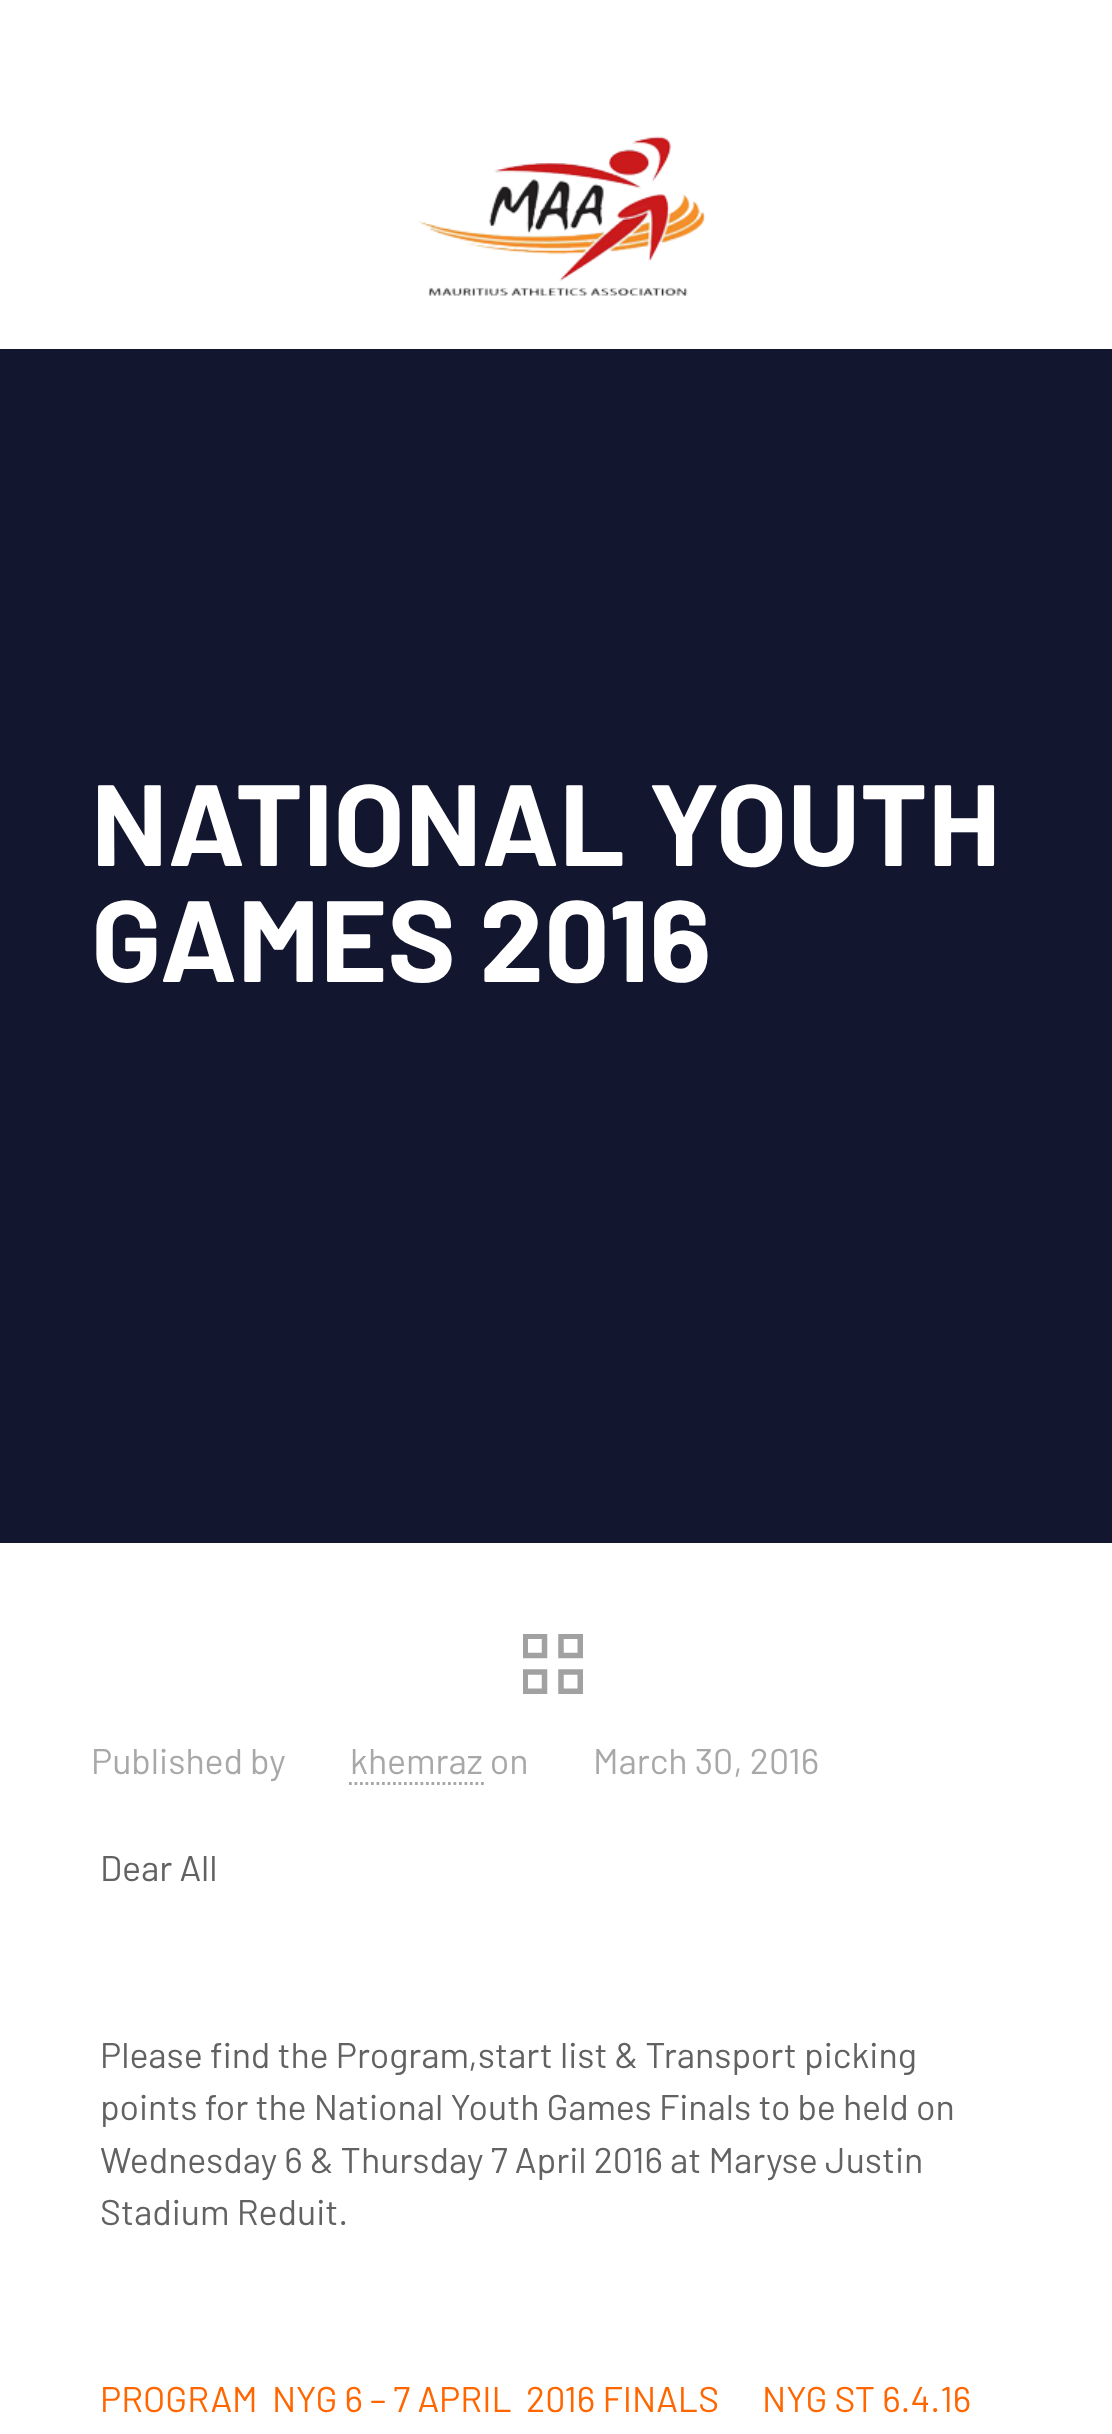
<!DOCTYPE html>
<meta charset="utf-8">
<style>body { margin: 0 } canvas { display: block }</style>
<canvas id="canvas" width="1112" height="2434"></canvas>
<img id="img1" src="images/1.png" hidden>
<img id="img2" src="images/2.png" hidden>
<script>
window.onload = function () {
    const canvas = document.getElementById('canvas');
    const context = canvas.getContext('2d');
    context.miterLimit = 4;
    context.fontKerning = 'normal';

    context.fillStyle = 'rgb(255, 255, 255)';
    context.fillRect(0, 0, 1112, 2434);
    context.fillStyle = 'rgb(19, 22, 47)';
    context.fillRect(0, 349, 1112, 1194);
    context.drawImage(document.getElementById('img1'), 417, 136, 289, 160);
    context.drawImage(document.getElementById('img2'), 523, 1634, 60, 60);
    context.beginPath();
    context.moveTo(349, 1783.5);
    context.lineTo(484, 1783.5);
    context.strokeStyle = 'rgb(168, 168, 168)';
    context.lineWidth = 2.8;
    context.setLineDash([2.75, 2.75]);
    context.stroke();
    context.font = 'bold 115.5px Barlow';
    context.fillStyle = 'rgb(255, 255, 255)';
    context.fillText('NATIONAL YOUTH', 91, 866);
    context.fillText('GAMES 2016', 91, 982);
    context.font = '35.75px Barlow';
    context.fillStyle = 'rgb(168, 168, 168)';
    context.fillText('Published by', 91, 1774);
    context.fillText('khemraz on', 350, 1774);
    context.fillText('March 30, 2016', 593, 1774);
    context.fillStyle = 'rgb(98, 98, 98)';
    context.fillText('Dear All', 100, 1881);
    context.fillText('Please find the Program,start list & Transport picking', 100, 2068);
    context.fillText('points for the National Youth Games Finals to be held on', 100, 2120);
    context.fillText('Wednesday 6 & Thursday 7 April 2016 at Maryse Justin', 100, 2173);
    context.fillText('Stadium Reduit.', 100, 2225);
    context.fillStyle = 'rgb(255, 102, 0)';
    context.fillText('PROGRAM  NYG 6 – 7 APRIL  2016 FINALS', 100, 2412);
    context.fillText('NYG ST 6.4.16', 762, 2412);
};
</script>
